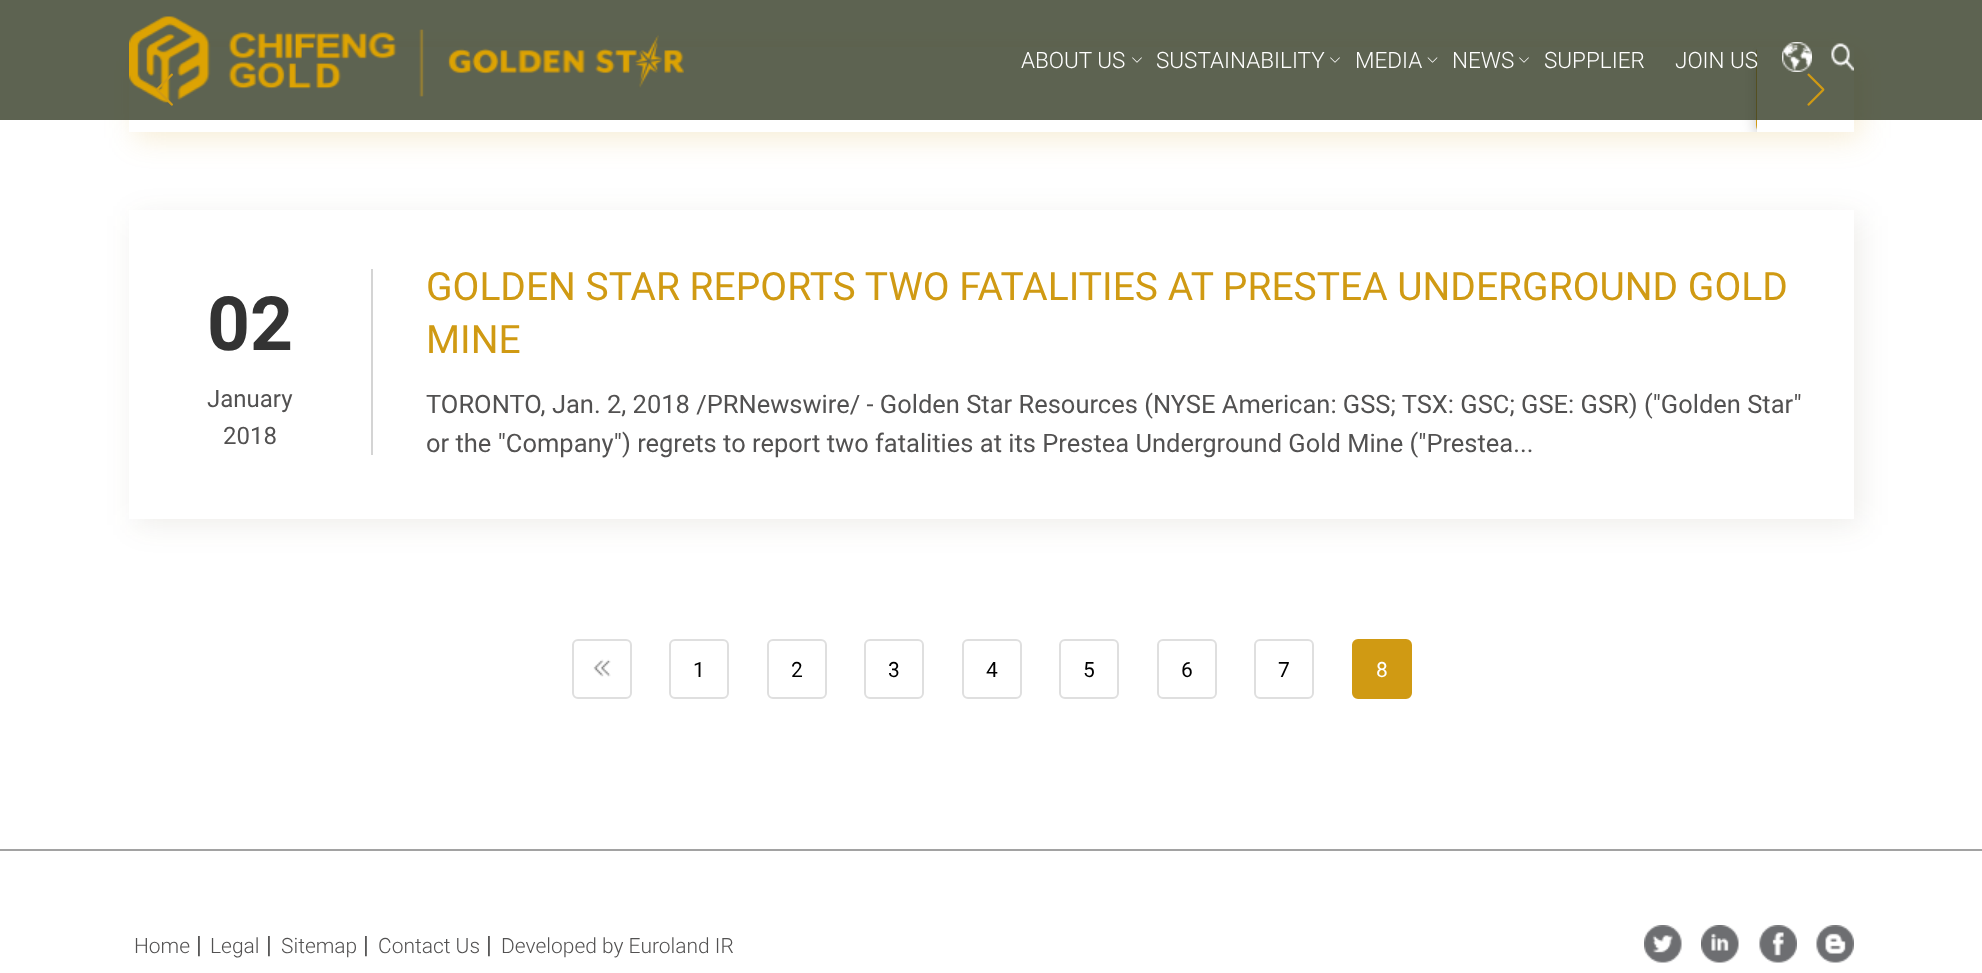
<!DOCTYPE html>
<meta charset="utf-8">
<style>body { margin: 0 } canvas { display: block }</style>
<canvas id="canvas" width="1982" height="973"></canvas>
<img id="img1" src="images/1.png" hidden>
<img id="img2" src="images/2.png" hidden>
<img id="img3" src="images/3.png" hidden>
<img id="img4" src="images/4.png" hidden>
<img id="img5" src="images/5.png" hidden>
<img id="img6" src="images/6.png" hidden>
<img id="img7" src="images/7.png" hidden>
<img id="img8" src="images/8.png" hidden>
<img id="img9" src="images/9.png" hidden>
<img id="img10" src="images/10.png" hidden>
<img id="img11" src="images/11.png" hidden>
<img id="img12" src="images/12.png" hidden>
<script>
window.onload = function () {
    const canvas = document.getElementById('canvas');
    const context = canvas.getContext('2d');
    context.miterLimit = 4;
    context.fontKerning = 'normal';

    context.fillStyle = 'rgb(255, 255, 255)';
    context.fillRect(0, 0, 1982, 973);
    context.save();
    context.beginPath();
    context.moveTo(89, 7);
    context.lineTo(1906, 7);
    context.lineTo(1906, 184);
    context.lineTo(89, 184);
    context.closePath();
    context.moveTo(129, 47);
    context.lineTo(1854, 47);
    context.lineTo(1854, 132);
    context.lineTo(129, 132);
    context.closePath();
    context.clip('evenodd');
    context.fillStyle = 'rgba(208, 154, 19, 0.19)';
    context.filter = 'blur(15px)';
    context.beginPath();
    context.rect(135, 53, 1725, 85);
    context.fill();
    context.filter = 'none';
    context.restore();
    context.save();
    context.beginPath();
    context.rect(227, 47, 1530, 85);
    context.clip();
    context.fillStyle = 'rgba(0, 0, 0, 0.25)';
    context.filter = 'blur(8px)';
    context.beginPath();
    context.roundRect(1757, 53, 219, 85, 11);
    context.fill();
    context.filter = 'none';
    context.restore();
    context.save();
    context.beginPath();
    context.rect(227, 47, 1530, 85);
    context.clip();
    context.fillStyle = 'rgb(208, 154, 19)';
    context.beginPath();
    context.moveTo(1767, 42);
    context.lineTo(1965, 42);
    context.bezierCurveTo(1971, 42, 1976, 47, 1976, 54);
    context.lineTo(1976, 125);
    context.bezierCurveTo(1976, 131, 1971, 136, 1965, 136);
    context.lineTo(1767, 136);
    context.bezierCurveTo(1761, 136, 1756, 131, 1756, 125);
    context.lineTo(1756, 54);
    context.bezierCurveTo(1756, 47, 1761, 42, 1767, 42);
    context.closePath();
    context.fill();
    context.restore();
    context.fillStyle = 'rgba(53, 60, 37, 0.8)';
    context.fillRect(0, 0, 1982, 120);
    context.drawImage(document.getElementById('img1'), 129, 16, 555, 87);
    context.drawImage(document.getElementById('img2'), 1132, 57, 10, 6);
    context.drawImage(document.getElementById('img2'), 1330, 57, 10, 6);
    context.drawImage(document.getElementById('img3'), 1427, 57, 11, 6);
    context.drawImage(document.getElementById('img2'), 1519, 57, 10, 6);
    context.drawImage(document.getElementById('img4'), 1782, 42, 30, 30);
    context.drawImage(document.getElementById('img5'), 1831, 43, 23, 28);
    context.drawImage(document.getElementById('img6'), 156, 73, 17, 33);
    context.drawImage(document.getElementById('img7'), 1807, 73, 18, 33);
    context.save();
    context.beginPath();
    context.moveTo(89, 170);
    context.lineTo(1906, 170);
    context.lineTo(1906, 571);
    context.lineTo(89, 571);
    context.closePath();
    context.moveTo(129, 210);
    context.lineTo(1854, 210);
    context.lineTo(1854, 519);
    context.lineTo(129, 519);
    context.closePath();
    context.clip('evenodd');
    context.fillStyle = 'rgba(70, 55, 18, 0.09)';
    context.filter = 'blur(15px)';
    context.beginPath();
    context.rect(135, 216, 1725, 309);
    context.fill();
    context.filter = 'none';
    context.restore();
    context.fillStyle = 'rgb(212, 212, 212)';
    context.fillRect(371, 269, 2, 186);
    context.beginPath();
    context.roundRect(573, 640, 58, 58, 5);
    context.strokeStyle = 'rgb(223, 223, 223)';
    context.lineWidth = 2;
    context.stroke();
    context.drawImage(document.getElementById('img8'), 593, 659, 18, 18);
    context.beginPath();
    context.roundRect(670, 640, 58, 58, 5);
    context.stroke();
    context.beginPath();
    context.roundRect(768, 640, 58, 58, 5);
    context.stroke();
    context.beginPath();
    context.roundRect(865, 640, 58, 58, 5);
    context.stroke();
    context.beginPath();
    context.roundRect(963, 640, 58, 58, 5);
    context.stroke();
    context.beginPath();
    context.roundRect(1060, 640, 58, 58, 5);
    context.stroke();
    context.beginPath();
    context.roundRect(1158, 640, 58, 58, 5);
    context.stroke();
    context.beginPath();
    context.roundRect(1255, 640, 58, 58, 5);
    context.stroke();
    context.fillStyle = 'rgb(208, 154, 19)';
    context.beginPath();
    context.roundRect(1353, 640, 58, 58, 5);
    context.fill();
    context.strokeStyle = 'rgb(208, 154, 19)';
    context.stroke();
    context.fillStyle = 'rgb(162, 162, 162)';
    context.fillRect(0, 849, 1982, 2);
    context.drawImage(document.getElementById('img9'), 1644, 925, 38, 38);
    context.drawImage(document.getElementById('img10'), 1701, 925, 38, 38);
    context.drawImage(document.getElementById('img11'), 1759, 925, 38, 38);
    context.drawImage(document.getElementById('img12'), 1816, 925, 38, 38);
    context.font = '300 22.5px Roboto';
    context.fillStyle = 'rgb(255, 255, 255)';
    context.fillText('ABOUT US', 1021, 68);
    context.fillText('SUSTAINABILITY', 1156, 68);
    context.fillText('MEDIA', 1355, 68);
    context.fillText('NEWS', 1452, 68);
    context.fillText('SUPPLIER', 1544, 68);
    context.fillText('JOIN US', 1675, 68);
    context.font = 'bold 75px Roboto';
    context.fillStyle = 'rgb(51, 51, 51)';
    context.fillText('02', 207, 350);
    context.font = '24px Roboto';
    context.fillStyle = 'rgb(82, 81, 81)';
    context.fillText('January', 207, 407);
    context.fillText('2018', 223, 444);
    context.font = '39px Roboto';
    context.fillStyle = 'rgb(208, 154, 19)';
    context.fillText('GOLDEN STAR REPORTS TWO FATALITIES AT PRESTEA UNDERGROUND GOLD', 426, 300);
    context.fillText('MINE', 426, 353);
    context.font = '25.5px Roboto';
    context.fillStyle = 'rgb(82, 81, 81)';
    context.fillText('TORONTO, Jan. 2, 2018 /PRNewswire/ - Golden Star Resources (NYSE American: GSS; TSX: GSC; GSE: GSR) ("Golden Star"', 426, 413);
    context.fillText('or the "Company") regrets to report two fatalities at its Prestea Underground Gold Mine ("Prestea...', 426, 452);
    context.font = '21px Roboto';
    context.fillStyle = 'rgb(0, 0, 0)';
    context.fillText('1', 693, 677);
    context.fillText('2', 791, 677);
    context.fillText('3', 888, 677);
    context.fillText('4', 986, 677);
    context.fillText('5', 1083, 677);
    context.fillText('6', 1181, 677);
    context.fillText('7', 1278, 677);
    context.fillStyle = 'rgb(255, 255, 255)';
    context.fillText('8', 1376, 677);
    context.font = '300 21px Roboto';
    context.fillStyle = 'rgb(82, 81, 81)';
    context.fillText('Home', 134, 953);
    context.font = '24px Roboto';
    context.fillText('|', 196, 953);
    context.font = '300 21px Roboto';
    context.fillText('Legal', 210, 953);
    context.font = '24px Roboto';
    context.fillText('|', 266, 953);
    context.font = '300 21px Roboto';
    context.fillText('Sitemap', 281, 953);
    context.font = '24px Roboto';
    context.fillText('|', 363, 953);
    context.font = '300 21px Roboto';
    context.fillText('Contact Us', 378, 953);
    context.font = '24px Roboto';
    context.fillText('|', 486, 953);
    context.font = '300 21px Roboto';
    context.fillText('Developed by Euroland IR', 501, 953);
};
</script>
